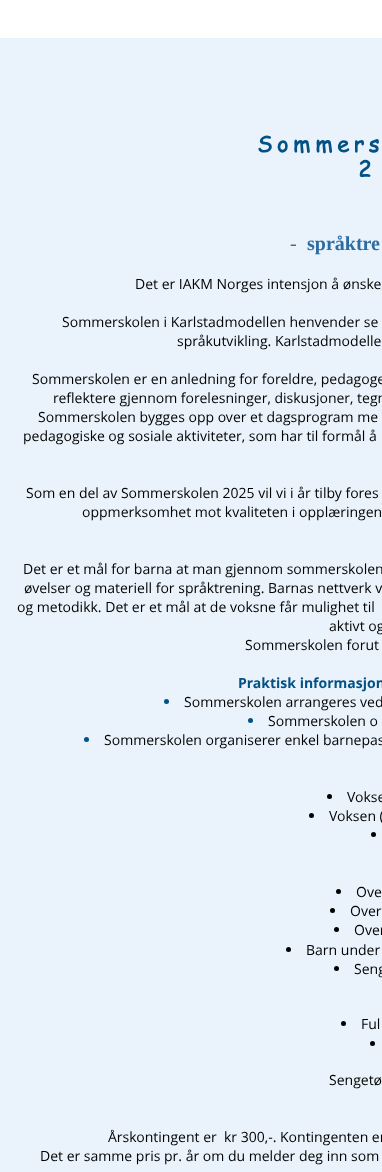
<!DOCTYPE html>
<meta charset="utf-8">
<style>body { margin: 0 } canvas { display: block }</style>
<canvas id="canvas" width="382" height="1172"></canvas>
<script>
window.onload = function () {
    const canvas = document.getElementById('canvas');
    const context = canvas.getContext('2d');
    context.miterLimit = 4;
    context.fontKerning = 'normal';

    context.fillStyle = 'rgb(255, 255, 255)';
    context.fillRect(0, 0, 382, 1172);
    context.fillStyle = 'rgb(234, 243, 252)';
    context.fillRect(0, 38, 382, 1134);
    context.fillStyle = 'rgb(4, 81, 132)';
    context.beginPath();
    context.arc(166.5, 701.5, 2.5, 0, 2 * Math.PI);
    context.fill();
    context.beginPath();
    context.arc(250.5, 720.5, 2.5, 0, 2 * Math.PI);
    context.fill();
    context.beginPath();
    context.arc(86.5, 739.5, 2.5, 0, 2 * Math.PI);
    context.fill();
    context.fillStyle = 'rgb(0, 0, 0)';
    context.beginPath();
    context.arc(329.5, 796.5, 2.5, 0, 2 * Math.PI);
    context.fill();
    context.beginPath();
    context.arc(311.5, 815.5, 2.5, 0, 2 * Math.PI);
    context.fill();
    context.beginPath();
    context.arc(373.5, 834.5, 2.5, 0, 2 * Math.PI);
    context.fill();
    context.beginPath();
    context.arc(338.5, 891.5, 2.5, 0, 2 * Math.PI);
    context.fill();
    context.beginPath();
    context.arc(332.5, 910.5, 2.5, 0, 2 * Math.PI);
    context.fill();
    context.beginPath();
    context.arc(336.5, 929.5, 2.5, 0, 2 * Math.PI);
    context.fill();
    context.beginPath();
    context.arc(288.5, 949.5, 2.5, 0, 2 * Math.PI);
    context.fill();
    context.beginPath();
    context.arc(336.5, 968.5, 2.5, 0, 2 * Math.PI);
    context.fill();
    context.beginPath();
    context.arc(343.5, 1023.5, 2.5, 0, 2 * Math.PI);
    context.fill();
    context.beginPath();
    context.arc(372.5, 1043.5, 2.5, 0, 2 * Math.PI);
    context.fill();
    context.letterSpacing = '4.5px';
    context.font = 'bold 22px "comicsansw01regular"';
    context.fillStyle = 'rgb(4, 81, 132)';
    context.fillText('Sommers', 257, 152);
    context.fillText('2', 358, 177);
    context.letterSpacing = '0px';
    context.font = '20px Liberation Serif';
    context.fillStyle = 'rgb(43, 108, 163)';
    context.fillText('-', 290, 250);
    context.font = 'bold 20px Liberation Serif';
    context.fillText('språktre', 307, 250);
    context.font = '14px Open Sans';
    context.fillStyle = 'rgb(0, 0, 0)';
    context.fillText('Det er IAKM Norges intensjon å ønske', 135, 289);
    context.fillText('Sommerskolen i Karlstadmodellen henvender se', 62, 327);
    context.fillText('språkutvikling. Karlstadmodelle', 177, 346);
    context.fillText('Sommerskolen er en anledning for foreldre, pedagoge', 32, 384);
    context.fillText('reflektere gjennom forelesninger, diskusjoner, tegn', 53, 403);
    context.fillText('Sommerskolen bygges opp over et dagsprogram me', 38, 422);
    context.fillText('pedagogiske og sosiale aktiviteter, som har til formål å', 23, 441);
    context.fillText('Som en del av Sommerskolen 2025 vil vi i år tilby fores', 26, 498);
    context.fillText('oppmerksomhet mot kvaliteten i opplæringen', 82, 517);
    context.fillText('Det er et mål for barna at man gjennom sommerskolen', 23, 574);
    context.fillText('øvelser og materiell for språktrening. Barnas nettverk v', 24, 593);
    context.fillText('og metodikk. Det er et mål at de voksne får mulighet til', 17, 612);
    context.fillText('aktivt og', 329, 631);
    context.fillText('Sommerskolen forut', 245, 650);
    context.font = 'bold 14px Open Sans';
    context.fillStyle = 'rgb(4, 81, 132)';
    context.fillText('Praktisk informasjon', 238, 688);
    context.font = '14px Open Sans';
    context.fillStyle = 'rgb(0, 0, 0)';
    context.fillText('Sommerskolen arrangeres ved', 184, 707);
    context.fillText('Sommerskolen o', 268, 726);
    context.fillText('Sommerskolen organiserer enkel barnepas', 104, 745);
    context.fillText('Vokse', 347, 802);
    context.fillText('Voksen (', 329, 821);
    context.fillText('Ove', 356, 897);
    context.fillText('Over', 350, 916);
    context.fillText('Over', 354, 935);
    context.fillText('Barn under', 306, 955);
    context.fillText('Seng', 354, 974);
    context.fillText('Ful', 361, 1029);
    context.fillText('Sengetø', 329, 1085);
    context.fillText('Årskontingent er  kr 300,-. Kontingenten er', 108, 1142);
    context.fillText('Det er samme pris pr. år om du melder deg inn som', 40, 1161);
};
</script>
